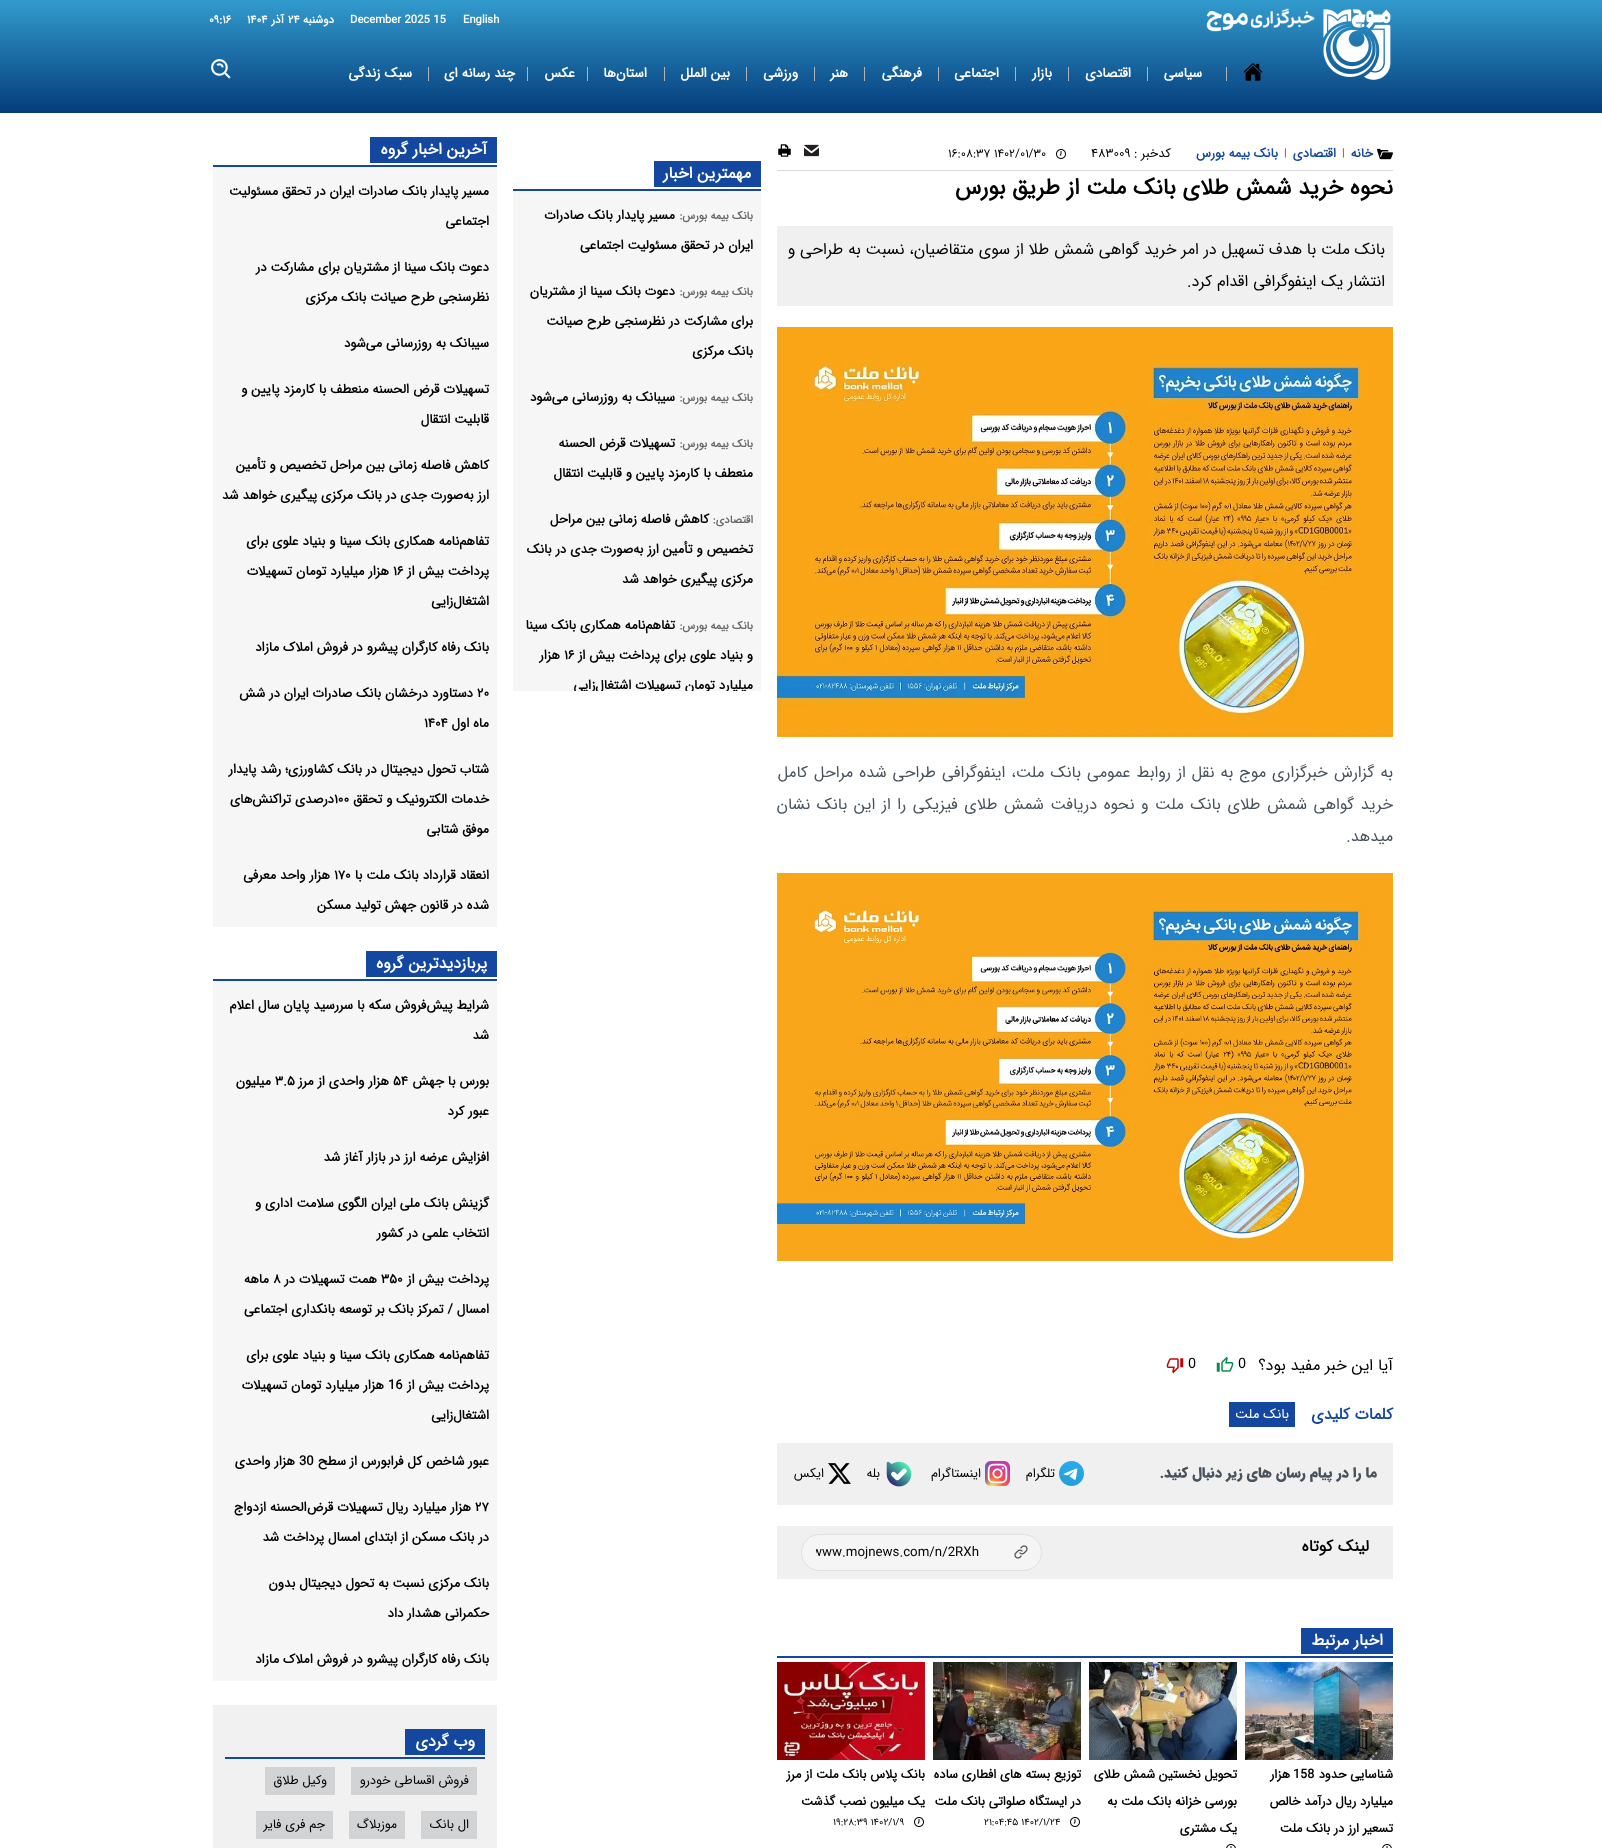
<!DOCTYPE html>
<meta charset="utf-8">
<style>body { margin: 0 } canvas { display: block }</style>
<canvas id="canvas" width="1602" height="1848"></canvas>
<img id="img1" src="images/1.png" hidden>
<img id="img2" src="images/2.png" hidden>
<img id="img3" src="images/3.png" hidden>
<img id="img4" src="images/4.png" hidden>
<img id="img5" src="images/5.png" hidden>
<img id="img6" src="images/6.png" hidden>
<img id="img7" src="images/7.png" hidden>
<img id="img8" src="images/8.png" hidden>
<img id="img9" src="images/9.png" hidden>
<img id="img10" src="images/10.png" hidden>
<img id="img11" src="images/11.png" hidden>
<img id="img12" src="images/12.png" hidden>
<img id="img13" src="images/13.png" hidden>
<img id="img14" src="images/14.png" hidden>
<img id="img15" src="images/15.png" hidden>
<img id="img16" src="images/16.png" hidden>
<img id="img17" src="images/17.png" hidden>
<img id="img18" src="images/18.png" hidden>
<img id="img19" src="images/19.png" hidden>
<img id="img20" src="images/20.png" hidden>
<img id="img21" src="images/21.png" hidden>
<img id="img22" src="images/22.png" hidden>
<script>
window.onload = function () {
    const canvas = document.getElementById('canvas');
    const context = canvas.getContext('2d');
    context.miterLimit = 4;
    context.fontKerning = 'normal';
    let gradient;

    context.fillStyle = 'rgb(255, 255, 255)';
    context.fillRect(0, 0, 1602, 1848);
    gradient = context.createLinearGradient(801, 0, 801, 113);
    gradient.addColorStop(0, 'rgb(50, 155, 205)');
    gradient.addColorStop(1, 'rgb(4, 60, 123)');
    context.fillStyle = gradient;
    context.fillRect(0, 0, 1602, 113);
    context.drawImage(document.getElementById('img1'), 1323, 9, 68, 71);
    context.drawImage(document.getElementById('img2'), 1206, 8, 109, 24);
    context.drawImage(document.getElementById('img3'), 1243, 63, 20, 18);
    context.fillStyle = 'rgb(178, 179, 183)';
    context.fillRect(1226, 67, 1, 14);
    context.fillRect(1147, 67, 1, 14);
    context.fillRect(1068, 67, 1, 14);
    context.fillRect(1015, 67, 1, 14);
    context.fillRect(938, 67, 1, 14);
    context.fillRect(864, 67, 1, 14);
    context.fillRect(814, 67, 1, 14);
    context.fillRect(746, 67, 1, 14);
    context.fillRect(664, 67, 1, 14);
    context.fillRect(587, 67, 1, 14);
    context.fillRect(527, 67, 1, 14);
    context.fillRect(428, 67, 1, 14);
    context.drawImage(document.getElementById('img4'), 211, 59, 20, 20);
    context.fillStyle = 'rgb(217, 217, 217)';
    context.fillRect(777, 170, 616, 1);
    context.drawImage(document.getElementById('img5'), 1377, 148, 16, 12);
    context.drawImage(document.getElementById('img6'), 1056, 149, 10, 10);
    context.drawImage(document.getElementById('img7'), 804, 144, 15, 13);
    context.drawImage(document.getElementById('img8'), 778, 144, 13, 13);
    context.fillStyle = 'rgb(240, 240, 240)';
    context.fillRect(777, 226, 616, 80);
    context.drawImage(document.getElementById('img9'), 777, 327, 616, 410);
    context.drawImage(document.getElementById('img10'), 777, 873, 616, 388);
    context.drawImage(document.getElementById('img11'), 1216, 1356, 18, 16);
    context.drawImage(document.getElementById('img12'), 1166, 1358, 18, 16);
    context.fillStyle = 'rgb(20, 71, 159)';
    context.fillRect(1229, 1402, 66, 25);
    context.fillStyle = 'rgb(240, 240, 240)';
    context.fillRect(777, 1443, 616, 62);
    context.drawImage(document.getElementById('img13'), 1059, 1461, 25, 25);
    context.drawImage(document.getElementById('img14'), 985, 1461, 25, 25);
    context.drawImage(document.getElementById('img15'), 886, 1461, 26, 26);
    context.drawImage(document.getElementById('img16'), 828, 1463, 23, 21);
    context.fillRect(777, 1526, 616, 53);
    context.fillStyle = 'rgb(245, 245, 245)';
    context.beginPath();
    context.roundRect(801.5, 1534.5, 240, 36, 18);
    context.fill();
    context.strokeStyle = 'rgb(224, 224, 224)';
    context.stroke();
    context.drawImage(document.getElementById('img17'), 1014, 1545, 14, 14);
    context.fillStyle = 'rgb(20, 71, 159)';
    context.fillRect(777, 1656, 616, 2);
    context.fillRect(1301, 1628, 92, 26);
    context.drawImage(document.getElementById('img18'), 1245, 1662, 148, 98);
    context.drawImage(document.getElementById('img19'), 1382, 1844, 10, 4);
    context.drawImage(document.getElementById('img20'), 1089, 1662, 148, 98);
    context.drawImage(document.getElementById('img19'), 1226, 1844, 10, 4);
    context.drawImage(document.getElementById('img21'), 933, 1662, 148, 98);
    context.drawImage(document.getElementById('img6'), 1070, 1817, 10, 10);
    context.drawImage(document.getElementById('img22'), 777, 1662, 148, 98);
    context.drawImage(document.getElementById('img6'), 914, 1817, 10, 10);
    context.fillRect(513, 189, 248, 2);
    context.fillRect(654, 161, 107, 26);
    context.fillStyle = 'rgb(246, 246, 246)';
    context.fillRect(513, 191, 248, 500);
    context.fillStyle = 'rgb(20, 71, 159)';
    context.fillRect(213, 165, 284, 2);
    context.fillRect(370, 137, 127, 26);
    context.fillStyle = 'rgb(246, 246, 246)';
    context.fillRect(213, 167, 284, 760);
    context.fillStyle = 'rgb(20, 71, 159)';
    context.fillRect(213, 979, 284, 2);
    context.fillRect(366, 951, 131, 26);
    context.fillStyle = 'rgb(246, 246, 246)';
    context.fillRect(213, 981, 284, 700);
    context.fillStyle = 'rgb(241, 241, 241)';
    context.fillRect(213, 1705, 284, 143);
    context.fillStyle = 'rgb(20, 71, 159)';
    context.fillRect(225, 1757, 260, 2);
    context.fillRect(405, 1729, 80, 26);
    context.fillStyle = 'rgb(210, 211, 213)';
    context.fillRect(351, 1767, 126, 28);
    context.fillRect(265, 1767, 70, 28);
    context.fillRect(421, 1811, 56, 28);
    context.fillRect(349, 1811, 56, 28);
    context.fillRect(256, 1811, 77, 28);
    context.font = 'bold 11.25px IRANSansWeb';
    context.fillStyle = 'rgb(255, 255, 255)';
    context.fillText('English', 463, 23);
    context.fillText('December 2025 15', 350, 23);
    context.direction = 'rtl';
    context.fillText('دوشنبه', 334, 23);
    context.direction = 'ltr';
    context.fillText('۲۴', 288, 23);
    context.direction = 'rtl';
    context.fillText('آذر', 284, 23);
    context.direction = 'ltr';
    context.fillText('۱۴۰۴', 247, 23);
    context.fillText('۰۹:۱۶', 209, 23);
    context.direction = 'rtl';
    context.font = 'bold 13.5px IRANSansWeb';
    context.fillText('سیاسی', 1202, 77);
    context.fillText('اقتصادی', 1131, 77);
    context.fillText('بازار', 1052, 77);
    context.fillText('اجتماعی', 999, 77);
    context.fillText('فرهنگی', 922, 77);
    context.fillText('هنر', 848, 77);
    context.fillText('ورزشی', 798, 77);
    context.fillText('بین الملل', 730, 77);
    context.fillText('استان‌ها', 647, 77);
    context.fillText('عکس', 575, 77);
    context.fillText('چند رسانه ای', 515, 77);
    context.fillText('سبک زندگی', 412, 77);
    context.font = 'bold 12.75px IRANSansWeb';
    context.fillStyle = 'rgb(20, 71, 159)';
    context.fillText('خانه', 1373, 157);
    context.direction = 'ltr';
    context.font = '11px IRANSansWeb';
    context.fillStyle = 'rgb(180, 34, 17)';
    context.fillText('|', 1342, 156);
    context.direction = 'rtl';
    context.font = 'bold 12.75px IRANSansWeb';
    context.fillStyle = 'rgb(20, 71, 159)';
    context.fillText('اقتصادی', 1336, 157);
    context.direction = 'ltr';
    context.font = '11px IRANSansWeb';
    context.fillStyle = 'rgb(180, 34, 17)';
    context.fillText('|', 1284, 156);
    context.direction = 'rtl';
    context.font = 'bold 12.75px IRANSansWeb';
    context.fillStyle = 'rgb(20, 71, 159)';
    context.fillText('بانک بیمه بورس', 1278, 157);
    context.font = '12.75px IRANSansWeb';
    context.fillStyle = 'rgb(0, 0, 0)';
    context.fillText('کدخبر :', 1171, 157);
    context.direction = 'ltr';
    context.fillText('۴۸۳۰۰۹', 1091, 157);
    context.font = '12px IRANSansWeb';
    context.fillText('۱۶:۰۸:۳۷ ۱۴۰۲/۰۱/۳۰', 948, 157);
    context.direction = 'rtl';
    context.font = 'bold 22.4px IRANSansWeb';
    context.fillText('نحوه خرید شمش طلای بانک ملت از طریق بورس', 1393, 194);
    context.font = '16px IRANSansWeb';
    context.fillText('بانک ملت با هدف تسهیل در امر خرید گواهی شمش طلا از سوی متقاضیان، نسبت به طراحی و', 1385, 254);
    context.fillText('انتشار یک اینفوگرافی اقدام کرد.', 1385, 286);
    context.wordSpacing = '1.25px';
    context.fillStyle = 'rgb(72, 82, 92)';
    context.fillText('به گزارش خبرگزاری موج به نقل از روابط عمومی بانک ملت، اینفوگرافی طراحی شده مراحل کامل', 1393, 777);
    context.wordSpacing = '1.75px';
    context.fillText('خرید گواهی شمش طلای بانک ملت و نحوه دریافت شمش طلای فیزیکی را از این بانک نشان', 1393, 809);
    context.wordSpacing = '0px';
    context.fillText('میدهد.', 1393, 841);
    context.fillStyle = 'rgb(0, 0, 0)';
    context.fillText('آیا این خبر مفید بود؟', 1393, 1370);
    context.direction = 'ltr';
    context.font = '14.4px IRANSansWeb';
    context.fillText('0', 1238, 1368);
    context.fillText('0', 1188, 1368);
    context.direction = 'rtl';
    context.font = 'bold 16px IRANSansWeb';
    context.fillStyle = 'rgb(20, 71, 159)';
    context.fillText('کلمات کلیدی', 1393, 1419);
    context.font = '13.5px IRANSansWeb';
    context.fillStyle = 'rgb(255, 255, 255)';
    context.fillText('بانک ملت', 1289, 1418);
    context.font = '900 14.4px IRANSansWeb';
    context.fillStyle = 'rgb(72, 82, 92)';
    context.fillText('ما را در پیام رسان های زیر دنبال کنید.', 1377, 1477);
    context.font = '12.75px IRANSansWeb';
    context.fillStyle = 'rgb(0, 0, 0)';
    context.fillText('تلگرام', 1055, 1477);
    context.fillText('اینستاگرام', 981, 1477);
    context.fillText('بله', 880, 1477);
    context.fillText('ایکس', 824, 1477);
    context.font = 'bold 16px IRANSansWeb';
    context.fillText('لینک کوتاه', 1369, 1551);
    context.save();
    context.beginPath();
    context.rect(816, 1542, 163, 21);
    context.clip();
    context.direction = 'ltr';
    context.font = '13.3px IRANSansWeb';
    context.fillText('www.mojnews.com/n/2RXh', 812, 1556);
    context.restore();
    context.fillStyle = 'rgb(255, 255, 255)';
    context.fillText('اخبار مرتبط', 1383, 1645);
    context.font = 'bold 12.6px IRANSansWeb';
    context.fillStyle = 'rgb(0, 0, 0)';
    context.fillText('شناسایی حدود', 1393, 1778);
    context.direction = 'ltr';
    context.fillText('158', 1293, 1778);
    context.direction = 'rtl';
    context.fillText('هزار', 1290, 1778);
    context.fillText('میلیارد ریال درآمد خالص', 1393, 1805);
    context.fillText('تسعیر ارز در بانک ملت', 1393, 1832);
    context.fillText('تحویل نخستین شمش طلای', 1237, 1778);
    context.fillText('بورسی خزانه بانک ملت به', 1237, 1805);
    context.fillText('یک مشتری', 1237, 1832);
    context.fillText('توزیع بسته های افطاری ساده', 1081, 1778);
    context.fillText('در ایستگاه صلواتی بانک ملت', 1081, 1805);
    context.direction = 'ltr';
    context.font = '10px IRANSansWeb';
    context.fillText('۲۱:۰۴:۴۵ ۱۴۰۲/۱/۲۴', 984, 1825);
    context.direction = 'rtl';
    context.font = 'bold 12.6px IRANSansWeb';
    context.fillText('بانک پلاس بانک ملت از مرز', 925, 1778);
    context.fillText('یک میلیون نصب گذشت', 925, 1805);
    context.direction = 'ltr';
    context.font = '10px IRANSansWeb';
    context.fillText('۱۹:۲۸:۳۹ ۱۴۰۲/۱/۹', 833, 1825);
    context.direction = 'rtl';
    context.font = 'bold 16px IRANSansWeb';
    context.fillStyle = 'rgb(255, 255, 255)';
    context.fillText('مهمترین اخبار', 751, 178);
    context.font = 'bold 11px IRANSansWeb';
    context.fillStyle = 'rgb(102, 102, 102)';
    context.fillText('بانک بیمه بورس:', 753, 219);
    context.font = 'bold 13.1px IRANSansWeb';
    context.fillStyle = 'rgb(0, 0, 0)';
    context.fillText('مسیر پایدار بانک صادرات', 675, 219);
    context.fillText('ایران در تحقق مسئولیت اجتماعی', 753, 249);
    context.font = 'bold 11px IRANSansWeb';
    context.fillStyle = 'rgb(102, 102, 102)';
    context.fillText('بانک بیمه بورس:', 753, 295);
    context.font = 'bold 13.1px IRANSansWeb';
    context.fillStyle = 'rgb(0, 0, 0)';
    context.fillText('دعوت بانک سینا از مشتریان', 675, 295);
    context.fillText('برای مشارکت در نظرسنجی طرح صیانت', 753, 325);
    context.fillText('بانک مرکزی', 753, 355);
    context.font = 'bold 11px IRANSansWeb';
    context.fillStyle = 'rgb(102, 102, 102)';
    context.fillText('بانک بیمه بورس:', 753, 401);
    context.font = 'bold 13.1px IRANSansWeb';
    context.fillStyle = 'rgb(0, 0, 0)';
    context.fillText('سیبانک به روزرسانی می‌شود', 675, 401);
    context.font = 'bold 11px IRANSansWeb';
    context.fillStyle = 'rgb(102, 102, 102)';
    context.fillText('بانک بیمه بورس:', 753, 447);
    context.font = 'bold 13.1px IRANSansWeb';
    context.fillStyle = 'rgb(0, 0, 0)';
    context.fillText('تسهیلات قرض الحسنه', 675, 447);
    context.fillText('منعطف با کارمزد پایین و قابلیت انتقال', 753, 477);
    context.font = 'bold 11px IRANSansWeb';
    context.fillStyle = 'rgb(102, 102, 102)';
    context.fillText('اقتصادی:', 753, 523);
    context.font = 'bold 13.1px IRANSansWeb';
    context.fillStyle = 'rgb(0, 0, 0)';
    context.fillText('کاهش فاصله زمانی بین مراحل', 709, 523);
    context.fillText('تخصیص و تأمین ارز به‌صورت جدی در بانک', 753, 553);
    context.fillText('مرکزی پیگیری خواهد شد', 753, 583);
    context.font = 'bold 11px IRANSansWeb';
    context.fillStyle = 'rgb(102, 102, 102)';
    context.fillText('بانک بیمه بورس:', 753, 629);
    context.font = 'bold 13.1px IRANSansWeb';
    context.fillStyle = 'rgb(0, 0, 0)';
    context.fillText('تفاهم‌نامه همکاری بانک سینا', 675, 629);
    context.fillText('و بنیاد علوی برای پرداخت بیش از', 753, 659);
    context.direction = 'ltr';
    context.fillText('۱۶', 564, 659);
    context.direction = 'rtl';
    context.fillText('هزار', 560, 659);
    context.save();
    context.beginPath();
    context.rect(513, 191, 248, 500);
    context.clip();
    context.fillText('میلیارد تومان تسهیلات اشتغال‌زایی', 753, 689);
    context.restore();
    context.font = 'bold 16px IRANSansWeb';
    context.fillStyle = 'rgb(255, 255, 255)';
    context.fillText('آخرین اخبار گروه', 487, 154);
    context.font = 'bold 13.1px IRANSansWeb';
    context.fillStyle = 'rgb(0, 0, 0)';
    context.fillText('مسیر پایدار بانک صادرات ایران در تحقق مسئولیت', 489, 195);
    context.fillText('اجتماعی', 489, 225);
    context.fillText('دعوت بانک سینا از مشتریان برای مشارکت در', 489, 271);
    context.fillText('نظرسنجی طرح صیانت بانک مرکزی', 489, 301);
    context.fillText('سیبانک به روزرسانی می‌شود', 489, 347);
    context.fillText('تسهیلات قرض الحسنه منعطف با کارمزد پایین و', 489, 393);
    context.fillText('قابلیت انتقال', 489, 423);
    context.fillText('کاهش فاصله زمانی بین مراحل تخصیص و تأمین', 489, 469);
    context.fillText('ارز به‌صورت جدی در بانک مرکزی پیگیری خواهد شد', 489, 499);
    context.fillText('تفاهم‌نامه همکاری بانک سینا و بنیاد علوی برای', 489, 545);
    context.fillText('پرداخت بیش از', 489, 575);
    context.direction = 'ltr';
    context.fillText('۱۶', 393, 575);
    context.direction = 'rtl';
    context.fillText('هزار میلیارد تومان تسهیلات', 389, 575);
    context.fillText('اشتغال‌زایی', 489, 605);
    context.fillText('بانک رفاه کارگران پیشرو در فروش املاک مازاد', 489, 651);
    context.direction = 'ltr';
    context.fillText('۲۰', 477, 697);
    context.direction = 'rtl';
    context.fillText('دستاورد درخشان بانک صادرات ایران در شش', 473, 697);
    context.fillText('ماه اول', 489, 727);
    context.direction = 'ltr';
    context.fillText('۱۴۰۴', 424, 727);
    context.direction = 'rtl';
    context.fillText('شتاب تحول دیجیتال در بانک کشاورزی؛ رشد پایدار', 489, 773);
    context.fillText('خدمات الکترونیک و تحقق', 489, 803);
    context.direction = 'ltr';
    context.fillText('۱۰۰', 334, 803);
    context.direction = 'rtl';
    context.fillText('درصدی تراکنش‌های', 334, 803);
    context.fillText('موفق شتابی', 489, 833);
    context.fillText('انعقاد قرارداد بانک ملت با', 489, 879);
    context.direction = 'ltr';
    context.fillText('۱۷۰', 334, 879);
    context.direction = 'rtl';
    context.fillText('هزار واحد معرفی', 330, 879);
    context.fillText('شده در قانون جهش تولید مسکن', 489, 909);
    context.font = 'bold 16px IRANSansWeb';
    context.fillStyle = 'rgb(255, 255, 255)';
    context.fillText('پربازدیدترین گروه', 487, 968);
    context.font = 'bold 13.1px IRANSansWeb';
    context.fillStyle = 'rgb(0, 0, 0)';
    context.fillText('شرایط پیش‌فروش سکه با سررسید پایان سال اعلام', 489, 1009);
    context.fillText('شد', 489, 1039);
    context.fillText('بورس با جهش', 489, 1085);
    context.direction = 'ltr';
    context.fillText('۵۴', 393, 1085);
    context.direction = 'rtl';
    context.fillText('هزار واحدی از مرز', 389, 1085);
    context.direction = 'ltr';
    context.fillText('۳.۵', 275, 1085);
    context.direction = 'rtl';
    context.fillText('میلیون', 271, 1085);
    context.fillText('عبور کرد', 489, 1115);
    context.fillText('افزایش عرضه ارز در بازار آغاز شد', 489, 1161);
    context.fillText('گزینش بانک ملی ایران الگوی سلامت اداری و', 489, 1207);
    context.fillText('انتخاب علمی در کشور', 489, 1237);
    context.fillText('پرداخت بیش از', 489, 1283);
    context.direction = 'ltr';
    context.fillText('۳۵۰', 381, 1283);
    context.direction = 'rtl';
    context.fillText('همت تسهیلات در', 377, 1283);
    context.direction = 'ltr';
    context.fillText('۸', 273, 1283);
    context.direction = 'rtl';
    context.fillText('ماهه', 269, 1283);
    context.fillText('امسال / تمرکز بانک بر توسعه بانکداری اجتماعی', 489, 1313);
    context.fillText('تفاهم‌نامه همکاری بانک سینا و بنیاد علوی برای', 489, 1359);
    context.fillText('پرداخت بیش از', 489, 1389);
    context.direction = 'ltr';
    context.fillText('16', 388, 1389);
    context.direction = 'rtl';
    context.fillText('هزار میلیارد تومان تسهیلات', 384, 1389);
    context.fillText('اشتغال‌زایی', 489, 1419);
    context.fillText('عبور شاخص کل فرابورس از سطح', 489, 1465);
    context.direction = 'ltr';
    context.fillText('30', 299, 1465);
    context.direction = 'rtl';
    context.fillText('هزار واحدی', 295, 1465);
    context.direction = 'ltr';
    context.fillText('۲۷', 475, 1511);
    context.direction = 'rtl';
    context.fillText('هزار میلیارد ریال تسهیلات قرض‌الحسنه ازدواج', 471, 1511);
    context.fillText('در بانک مسکن از ابتدای امسال پرداخت شد', 489, 1541);
    context.fillText('بانک مرکزی نسبت به تحول دیجیتال بدون', 489, 1587);
    context.fillText('حکمرانی هشدار داد', 489, 1617);
    context.fillText('بانک رفاه کارگران پیشرو در فروش املاک مازاد', 489, 1663);
    context.font = 'bold 16px IRANSansWeb';
    context.fillStyle = 'rgb(255, 255, 255)';
    context.fillText('وب گردی', 475, 1746);
    context.font = '12.75px IRANSansWeb';
    context.fillStyle = 'rgb(0, 0, 0)';
    context.fillText('فروش اقساطی خودرو', 469, 1784);
    context.fillText('وکیل طلاق', 327, 1784);
    context.fillText('ال بانک', 469, 1828);
    context.fillText('موزبلاگ', 397, 1828);
    context.fillText('جم فری فایر', 325, 1828);
};
</script>
